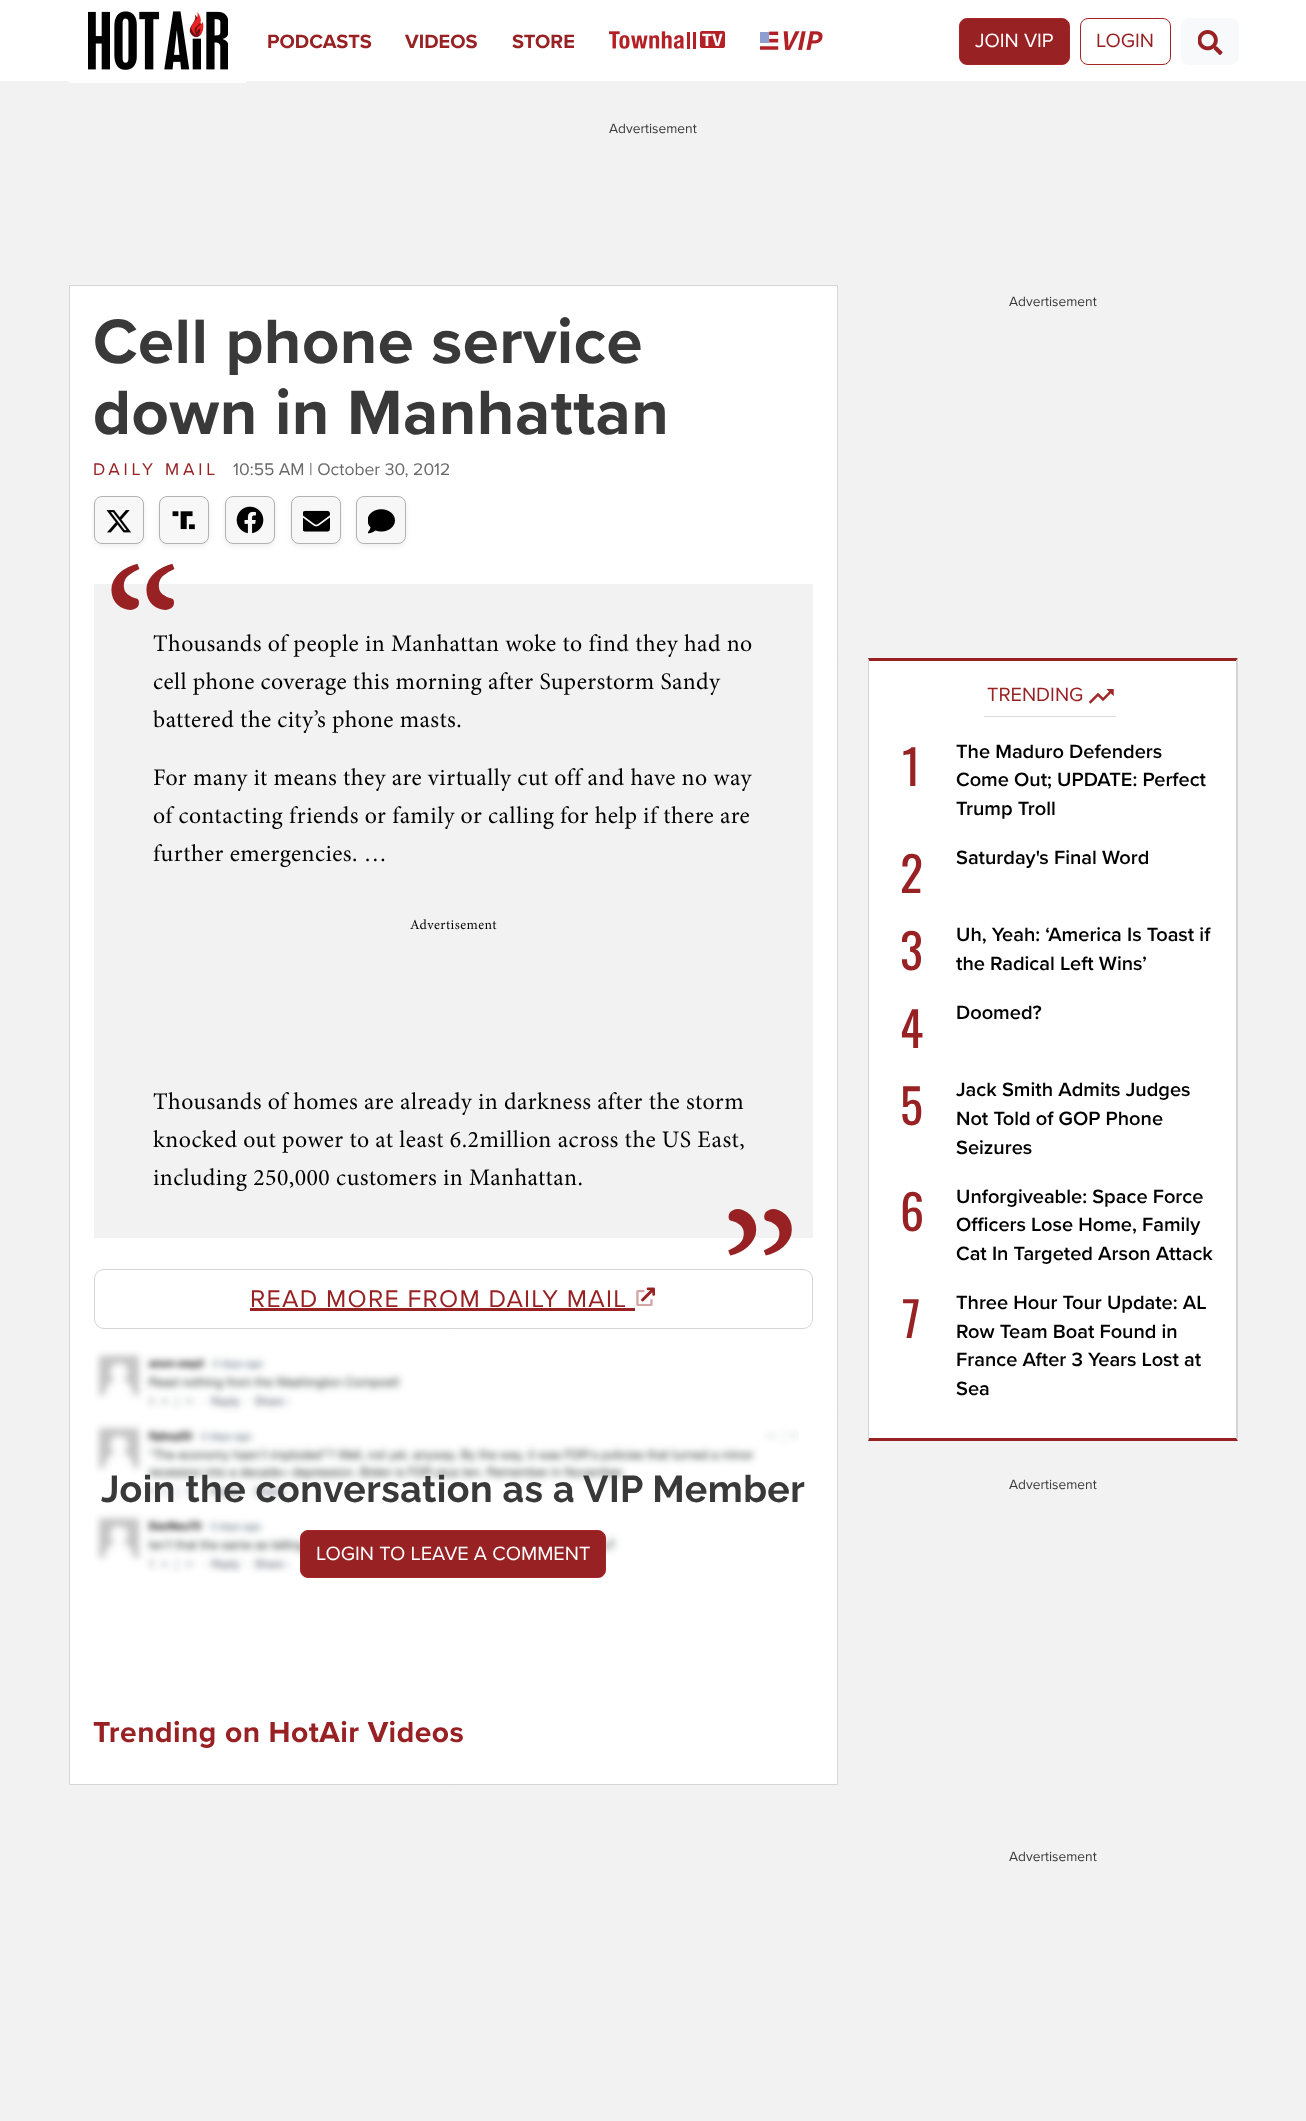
<!DOCTYPE html>
<meta charset="utf-8">
<style>body { margin: 0 } canvas { display: block }</style>
<canvas id="canvas" width="1306" height="2121"></canvas>
<img id="img1" src="images/1.png" hidden>
<img id="img2" src="images/2.png" hidden>
<img id="img3" src="images/3.png" hidden>
<img id="img4" src="images/4.png" hidden>
<img id="img5" src="images/5.png" hidden>
<img id="img6" src="images/6.png" hidden>
<img id="img7" src="images/7.png" hidden>
<img id="img8" src="images/8.png" hidden>
<img id="img9" src="images/9.png" hidden>
<img id="img10" src="images/10.png" hidden>
<img id="img11" src="images/11.png" hidden>
<img id="img12" src="images/12.png" hidden>
<script>
window.onload = function () {
    const canvas = document.getElementById('canvas');
    const context = canvas.getContext('2d');
    context.miterLimit = 4;
    context.fontKerning = 'normal';

    context.fillStyle = 'rgb(242, 242, 242)';
    context.fillRect(0, 0, 1306, 2121);
    context.fillStyle = 'rgb(255, 255, 255)';
    context.fillRect(0, 0, 1306, 81);
    context.drawImage(document.getElementById('img1'), 88, 11, 140, 59);
    context.fillRect(69, 81, 177, 2);
    context.drawImage(document.getElementById('img2'), 609, 31, 116, 18);
    context.drawImage(document.getElementById('img3'), 760, 31, 63, 19);
    context.fillStyle = 'rgb(151, 33, 35)';
    context.beginPath();
    context.roundRect(959.5, 18.5, 110, 46, 7.5);
    context.fill();
    context.strokeStyle = 'rgb(168, 37, 39)';
    context.stroke();
    context.beginPath();
    context.roundRect(1080.5, 18.5, 90, 46, 7.5);
    context.stroke();
    context.fillStyle = 'rgb(248, 249, 250)';
    context.beginPath();
    context.roundRect(1181, 18, 58, 47, 8);
    context.fill();
    context.drawImage(document.getElementById('img4'), 1198, 30, 25, 25);
    context.fillStyle = 'rgb(255, 255, 255)';
    context.beginPath();
    context.rect(69.5, 285.5, 768, 1499);
    context.fill();
    context.strokeStyle = 'rgb(213, 213, 213)';
    context.stroke();
    context.fillStyle = 'rgba(0, 0, 0, 0.07)';
    context.filter = 'blur(2.5px)';
    context.beginPath();
    context.roundRect(94, 499, 50, 47, 8);
    context.fill();
    context.filter = 'none';
    context.fillStyle = 'rgb(247, 247, 247)';
    context.beginPath();
    context.roundRect(94.5, 496.5, 49, 47, 7.5);
    context.fill();
    context.strokeStyle = 'rgb(178, 178, 178)';
    context.stroke();
    context.drawImage(document.getElementById('img5'), 106, 510, 25, 23);
    context.fillStyle = 'rgba(0, 0, 0, 0.07)';
    context.filter = 'blur(2.5px)';
    context.beginPath();
    context.roundRect(159, 499, 50, 47, 8);
    context.fill();
    context.filter = 'none';
    context.fillStyle = 'rgb(247, 247, 247)';
    context.beginPath();
    context.roundRect(159.5, 496.5, 49, 47, 7.5);
    context.fill();
    context.stroke();
    context.drawImage(document.getElementById('img6'), 172, 511, 23, 19);
    context.fillStyle = 'rgba(0, 0, 0, 0.07)';
    context.filter = 'blur(2.5px)';
    context.beginPath();
    context.roundRect(225, 499, 50, 47, 8);
    context.fill();
    context.filter = 'none';
    context.fillStyle = 'rgb(247, 247, 247)';
    context.beginPath();
    context.roundRect(225.5, 496.5, 49, 47, 7.5);
    context.fill();
    context.stroke();
    context.drawImage(document.getElementById('img7'), 236, 506, 28, 28);
    context.fillStyle = 'rgba(0, 0, 0, 0.07)';
    context.filter = 'blur(2.5px)';
    context.beginPath();
    context.roundRect(291, 499, 50, 47, 8);
    context.fill();
    context.filter = 'none';
    context.fillStyle = 'rgb(247, 247, 247)';
    context.beginPath();
    context.roundRect(291.5, 496.5, 49, 47, 7.5);
    context.fill();
    context.stroke();
    context.drawImage(document.getElementById('img8'), 303, 510, 27, 22);
    context.fillStyle = 'rgba(0, 0, 0, 0.07)';
    context.filter = 'blur(2.5px)';
    context.beginPath();
    context.roundRect(356, 499, 50, 47, 8);
    context.fill();
    context.filter = 'none';
    context.fillStyle = 'rgb(247, 247, 247)';
    context.beginPath();
    context.roundRect(356.5, 496.5, 49, 47, 7.5);
    context.fill();
    context.stroke();
    context.drawImage(document.getElementById('img9'), 368, 509, 27, 25);
    context.fillStyle = 'rgb(242, 242, 242)';
    context.fillRect(94, 584, 719, 654);
    context.beginPath();
    context.roundRect(94.5, 1269.5, 718, 59, 9.5);
    context.strokeStyle = 'rgb(213, 213, 213)';
    context.stroke();
    context.fillStyle = 'rgb(151, 33, 35)';
    context.fillRect(250, 1308, 385, 3);
    context.drawImage(document.getElementById('img10'), 636, 1287, 19, 19);
    context.drawImage(document.getElementById('img11'), 94, 1350, 705, 224);
    context.beginPath();
    context.roundRect(300.5, 1530.5, 305, 47, 7.5);
    context.fill();
    context.strokeStyle = 'rgb(168, 37, 39)';
    context.stroke();
    context.fillStyle = 'rgb(255, 255, 255)';
    context.fillRect(869, 661, 367, 777);
    context.fillStyle = 'rgb(151, 33, 35)';
    context.beginPath();
    context.moveTo(868, 658);
    context.lineTo(1238, 658);
    context.lineTo(1236, 661);
    context.lineTo(869, 661);
    context.closePath();
    context.fill();
    context.fillStyle = 'rgb(213, 213, 213)';
    context.beginPath();
    context.moveTo(1238, 658);
    context.lineTo(1238, 1441);
    context.lineTo(1236, 1438);
    context.lineTo(1236, 661);
    context.closePath();
    context.fill();
    context.fillStyle = 'rgb(151, 33, 35)';
    context.beginPath();
    context.moveTo(1238, 1441);
    context.lineTo(868, 1441);
    context.lineTo(869, 1438);
    context.lineTo(1236, 1438);
    context.closePath();
    context.fill();
    context.fillStyle = 'rgb(213, 213, 213)';
    context.beginPath();
    context.moveTo(868, 1441);
    context.lineTo(868, 658);
    context.lineTo(869, 661);
    context.lineTo(869, 1438);
    context.closePath();
    context.fill();
    context.fillStyle = 'rgb(218, 218, 218)';
    context.fillRect(984, 716, 132, 1);
    context.drawImage(document.getElementById('img12'), 1089, 689, 25, 15);
    context.font = 'bold 20px Proxima Nova';
    context.fillStyle = 'rgb(151, 33, 35)';
    context.fillText('PODCASTS', 267, 48);
    context.fillText('VIDEOS', 405, 48);
    context.fillText('STORE', 512, 48);
    context.font = '20px Proxima Nova';
    context.fillStyle = 'rgb(255, 255, 255)';
    context.fillText('JOIN VIP', 975, 47);
    context.fillStyle = 'rgb(151, 33, 35)';
    context.fillText('LOGIN', 1096, 47);
    context.font = '13.75px Proxima Nova';
    context.fillStyle = 'rgb(57, 57, 57)';
    context.fillText('Advertisement', 609, 133);
    context.letterSpacing = '0.45px';
    context.font = 'bold 65px Proxima Nova';
    context.fillText('Cell phone service', 93, 363);
    context.fillText('down in Manhattan', 93, 434);
    context.letterSpacing = '3.75px';
    context.font = '17.5px Proxima Nova';
    context.fillStyle = 'rgb(151, 33, 35)';
    context.fillText('DAILY MAIL', 93, 475);
    context.letterSpacing = '0px';
    context.fillStyle = 'rgb(105, 105, 105)';
    context.fillText('10:55 AM | October 30, 2012', 233, 475);
    context.letterSpacing = '0.45px';
    context.font = '200px Minion';
    context.fillStyle = 'rgb(151, 33, 35)';
    context.fillText('“', 103, 707);
    context.font = '23.75px Minion';
    context.fillStyle = 'rgb(0, 0, 0)';
    context.fillText('Thousands of people in Manhattan woke to find they had no', 153, 651);
    context.fillText('cell phone coverage this morning after Superstorm Sandy', 153, 689);
    context.fillText('battered the city’s phone masts.', 153, 727);
    context.fillText('For many it means they are virtually cut off and have no way', 153, 785);
    context.fillText('of contacting friends or family or calling for help if there are', 153, 823);
    context.fillText('further emergencies. …', 153, 861);
    context.font = '13.75px Minion';
    context.fillText('Advertisement', 410, 929);
    context.font = '23.75px Minion';
    context.fillText('Thousands of homes are already in darkness after the storm', 153, 1109);
    context.fillText('knocked out power to at least 6.2million across the US East,', 153, 1147);
    context.fillText('including 250,000 customers in Manhattan.', 153, 1185);
    context.font = '200px Minion';
    context.fillStyle = 'rgb(151, 33, 35)';
    context.fillText('”', 720, 1351);
    context.letterSpacing = '1.25px';
    context.font = '25px Proxima Nova';
    context.fillText('READ MORE FROM DAILY MAIL', 250, 1307);
    context.letterSpacing = '0.45px';
    context.font = 'bold 37.5px Raleway';
    context.fillStyle = 'rgb(57, 57, 57)';
    context.fillText('Join the conversation as a VIP Member', 101, 1502);
    context.letterSpacing = '0px';
    context.font = '20px Proxima Nova';
    context.fillStyle = 'rgb(255, 255, 255)';
    context.fillText('LOGIN TO LEAVE A COMMENT', 316, 1560);
    context.letterSpacing = '0.45px';
    context.font = 'bold 30px Proxima Nova';
    context.fillStyle = 'rgb(151, 33, 35)';
    context.fillText('Trending on HotAir Videos', 93, 1742);
    context.letterSpacing = '0px';
    context.font = '13.75px Proxima Nova';
    context.fillStyle = 'rgb(57, 57, 57)';
    context.fillText('Advertisement', 1009, 306);
    context.font = '20px Proxima Nova';
    context.fillStyle = 'rgb(151, 33, 35)';
    context.fillText('TRENDING', 987, 701);
    context.font = '48px Oswald';
    context.fillText('1', 902, 786);
    context.font = '600 20px Proxima Nova';
    context.fillStyle = 'rgb(0, 0, 0)';
    context.fillText('The Maduro Defenders', 956, 758);
    context.fillText('Come Out; UPDATE: Perfect', 956, 786);
    context.fillText('Trump Troll', 956, 815);
    context.font = '48px Oswald';
    context.fillStyle = 'rgb(151, 33, 35)';
    context.fillText('2', 900, 893);
    context.font = '600 20px Proxima Nova';
    context.fillStyle = 'rgb(0, 0, 0)';
    context.fillText('Saturday\'s Final Word', 956, 864);
    context.font = '48px Oswald';
    context.fillStyle = 'rgb(151, 33, 35)';
    context.fillText('3', 900, 970);
    context.font = '600 20px Proxima Nova';
    context.fillStyle = 'rgb(0, 0, 0)';
    context.fillText('Uh, Yeah: ‘America Is Toast if', 956, 941);
    context.fillText('the Radical Left Wins’', 956, 970);
    context.font = '48px Oswald';
    context.fillStyle = 'rgb(151, 33, 35)';
    context.fillText('4', 900, 1048);
    context.font = '600 20px Proxima Nova';
    context.fillStyle = 'rgb(0, 0, 0)';
    context.fillText('Doomed?', 956, 1019);
    context.font = '48px Oswald';
    context.fillStyle = 'rgb(151, 33, 35)';
    context.fillText('5', 900, 1125);
    context.font = '600 20px Proxima Nova';
    context.fillStyle = 'rgb(0, 0, 0)';
    context.fillText('Jack Smith Admits Judges', 956, 1096);
    context.fillText('Not Told of GOP Phone', 956, 1125);
    context.fillText('Seizures', 956, 1154);
    context.font = '48px Oswald';
    context.fillStyle = 'rgb(151, 33, 35)';
    context.fillText('6', 900, 1231);
    context.font = '600 20px Proxima Nova';
    context.fillStyle = 'rgb(0, 0, 0)';
    context.fillText('Unforgiveable: Space Force', 956, 1203);
    context.fillText('Officers Lose Home, Family', 956, 1231);
    context.fillText('Cat In Targeted Arson Attack', 956, 1260);
    context.font = '48px Oswald';
    context.fillStyle = 'rgb(151, 33, 35)';
    context.fillText('7', 902, 1338);
    context.font = '600 20px Proxima Nova';
    context.fillStyle = 'rgb(0, 0, 0)';
    context.fillText('Three Hour Tour Update: AL', 956, 1309);
    context.fillText('Row Team Boat Found in', 956, 1338);
    context.fillText('France After 3 Years Lost at', 956, 1366);
    context.fillText('Sea', 956, 1395);
    context.font = '13.75px Proxima Nova';
    context.fillStyle = 'rgb(57, 57, 57)';
    context.fillText('Advertisement', 1009, 1489);
    context.fillText('Advertisement', 1009, 1861);
};
</script>
